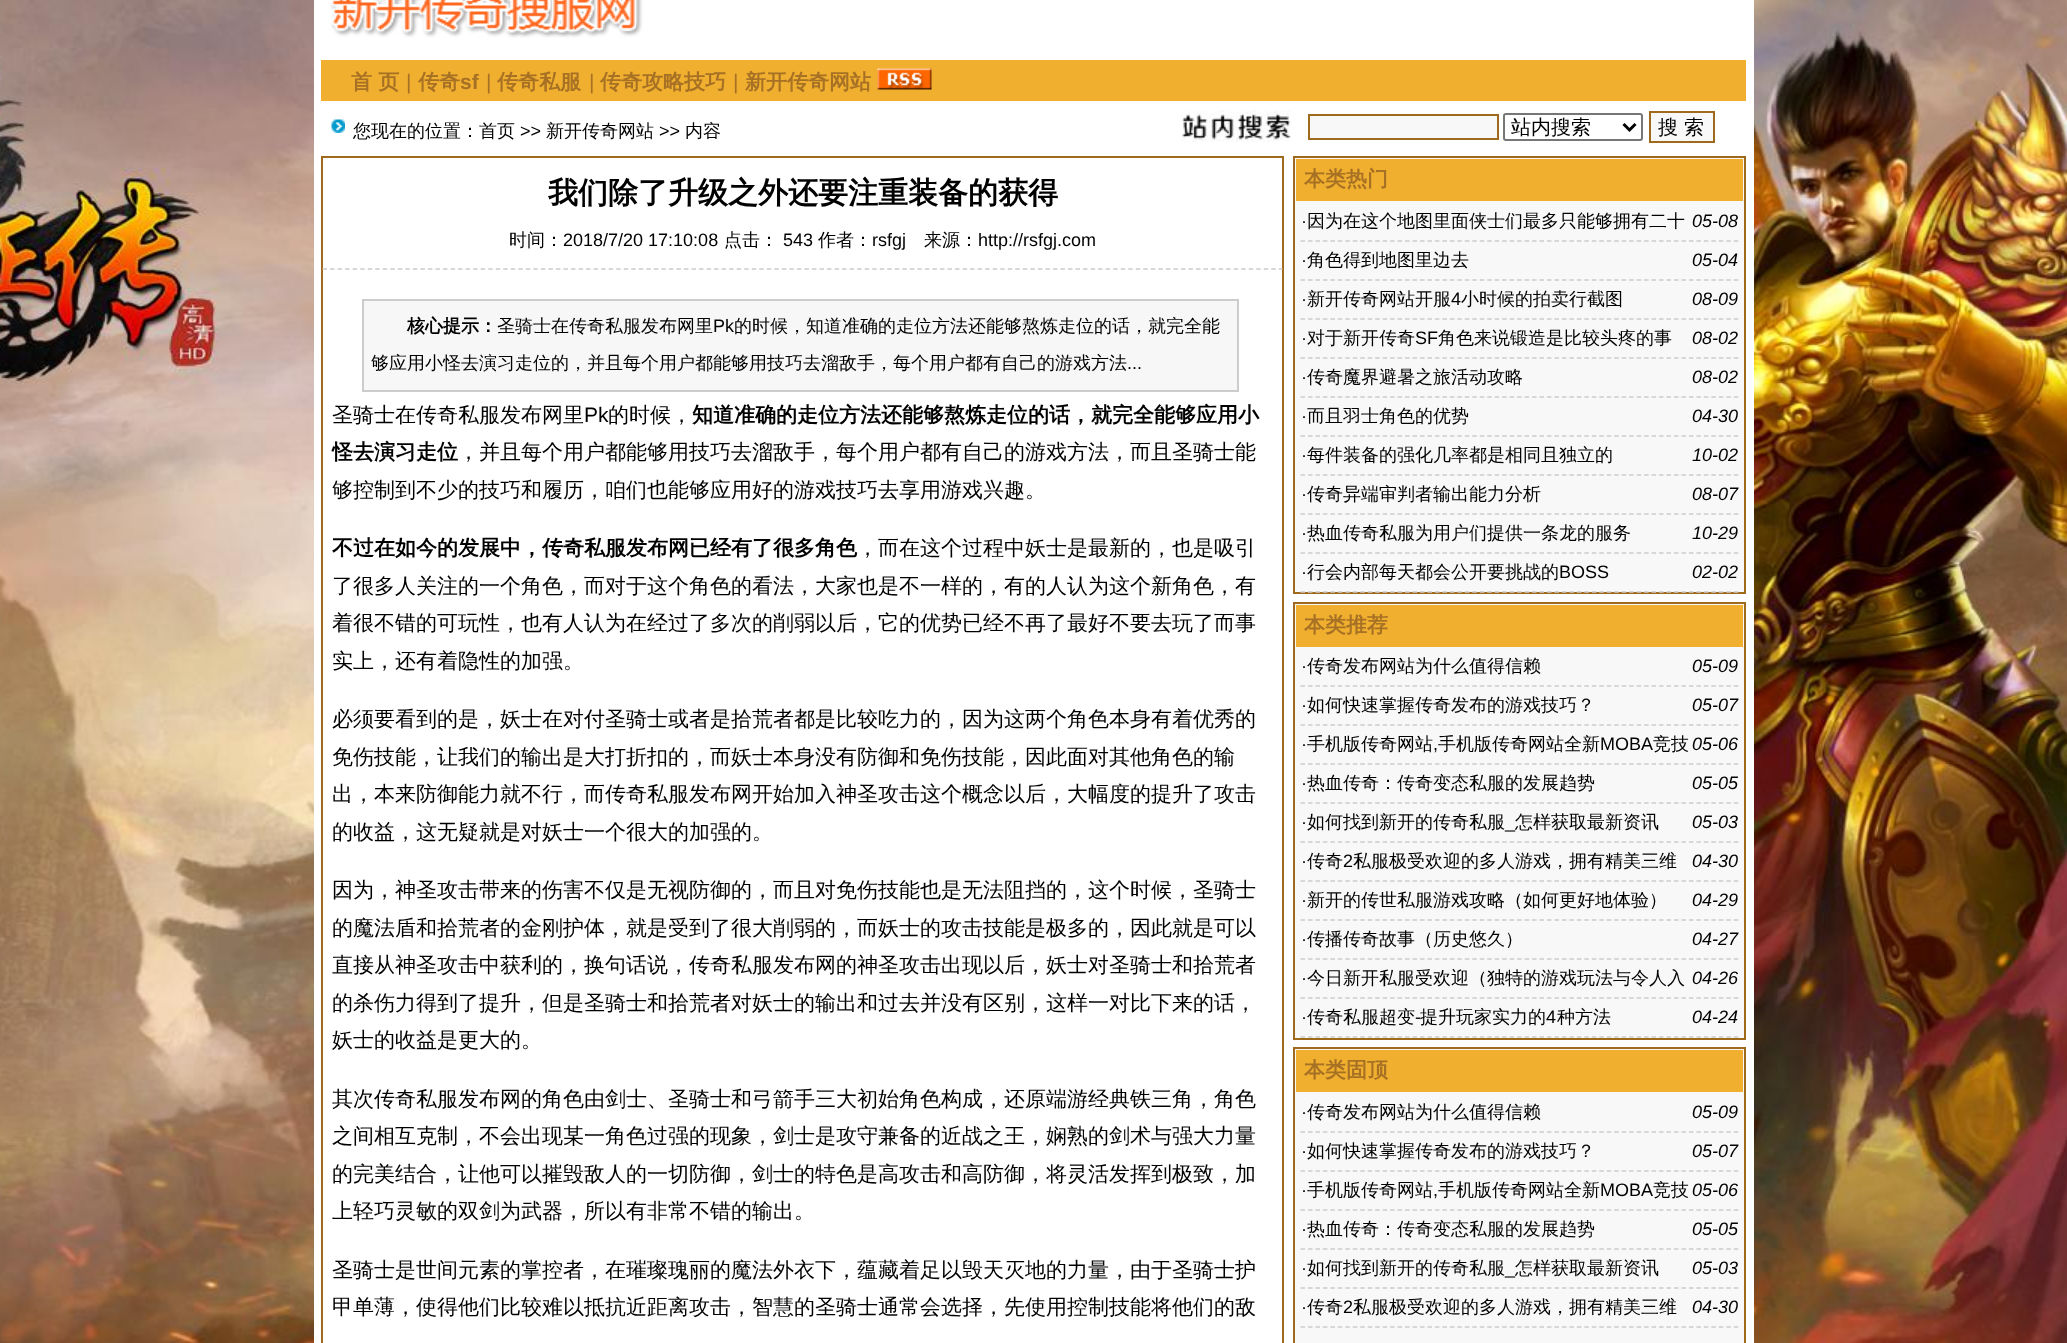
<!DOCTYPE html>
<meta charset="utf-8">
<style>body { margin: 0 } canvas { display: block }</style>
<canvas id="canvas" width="2067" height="1343"></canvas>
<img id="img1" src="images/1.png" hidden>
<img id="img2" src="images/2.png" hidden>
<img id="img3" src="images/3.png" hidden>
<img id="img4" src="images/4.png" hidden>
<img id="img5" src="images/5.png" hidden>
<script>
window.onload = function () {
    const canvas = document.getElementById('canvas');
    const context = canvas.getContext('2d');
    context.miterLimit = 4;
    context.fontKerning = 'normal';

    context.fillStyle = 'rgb(255, 255, 255)';
    context.fillRect(0, 0, 2067, 1343);
    context.drawImage(document.getElementById('img1'), 0, 0, 2067, 1343);
    context.fillRect(314, 0, 1440, 1343);
    context.drawImage(document.getElementById('img2'), 330, 0, 313, 38);
    context.fillStyle = 'rgb(240, 175, 46)';
    context.fillRect(321, 60, 1425, 41);
    context.drawImage(document.getElementById('img3'), 877, 68, 55, 22);
    context.drawImage(document.getElementById('img4'), 331, 119, 14, 14);
    context.drawImage(document.getElementById('img5'), 1181, 110, 110, 32);
    context.fillStyle = 'rgb(248, 248, 248)';
    context.beginPath();
    context.rect(1309, 115, 189, 24);
    context.fill();
    context.strokeStyle = 'rgb(159, 106, 28)';
    context.lineWidth = 2;
    context.stroke();
    context.beginPath();
    context.roundRect(1504, 114, 138, 26, 2);
    context.strokeStyle = 'rgb(118, 118, 118)';
    context.stroke();
    context.beginPath();
    context.moveTo(1623.5, 124);
    context.lineTo(1629.5, 130);
    context.lineTo(1635.5, 124);
    context.strokeStyle = 'rgb(0, 0, 0)';
    context.lineWidth = 3;
    context.stroke();
    context.beginPath();
    context.rect(1650, 112, 64, 30);
    context.fill();
    context.strokeStyle = 'rgb(159, 106, 28)';
    context.lineWidth = 2;
    context.stroke();
    context.strokeRect(322, 157, 961, 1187);
    context.beginPath();
    context.moveTo(322.5, 269);
    context.lineTo(1282.5, 269);
    context.strokeStyle = 'rgb(204, 204, 204)';
    context.lineWidth = 1.5;
    context.setLineDash([4.5, 3.03]);
    context.stroke();
    context.fillStyle = 'rgb(247, 247, 247)';
    context.beginPath();
    context.rect(363, 300, 875, 91);
    context.fill();
    context.lineWidth = 2;
    context.setLineDash([]);
    context.stroke();
    context.fillStyle = 'rgb(248, 248, 248)';
    context.beginPath();
    context.rect(1294, 157, 451, 436);
    context.fill();
    context.strokeStyle = 'rgb(159, 106, 28)';
    context.stroke();
    context.fillStyle = 'rgb(240, 175, 46)';
    context.fillRect(1296, 159, 447, 42);
    context.beginPath();
    context.moveTo(1300.5, 241);
    context.lineTo(1738.5, 241);
    context.strokeStyle = 'rgb(204, 204, 204)';
    context.lineWidth = 1.5;
    context.setLineDash([4.5, 2.97]);
    context.stroke();
    context.beginPath();
    context.moveTo(1300.5, 280);
    context.lineTo(1738.5, 280);
    context.stroke();
    context.beginPath();
    context.moveTo(1300.5, 319);
    context.lineTo(1738.5, 319);
    context.stroke();
    context.beginPath();
    context.moveTo(1300.5, 358);
    context.lineTo(1738.5, 358);
    context.stroke();
    context.beginPath();
    context.moveTo(1300.5, 397);
    context.lineTo(1738.5, 397);
    context.stroke();
    context.beginPath();
    context.moveTo(1300.5, 436);
    context.lineTo(1738.5, 436);
    context.stroke();
    context.beginPath();
    context.moveTo(1300.5, 475);
    context.lineTo(1738.5, 475);
    context.stroke();
    context.beginPath();
    context.moveTo(1300.5, 514);
    context.lineTo(1738.5, 514);
    context.stroke();
    context.beginPath();
    context.moveTo(1300.5, 553);
    context.lineTo(1738.5, 553);
    context.stroke();
    context.beginPath();
    context.moveTo(1300.5, 592);
    context.lineTo(1738.5, 592);
    context.stroke();
    context.fillStyle = 'rgb(248, 248, 248)';
    context.beginPath();
    context.rect(1294, 603, 451, 436);
    context.fill();
    context.strokeStyle = 'rgb(159, 106, 28)';
    context.lineWidth = 2;
    context.setLineDash([]);
    context.stroke();
    context.fillStyle = 'rgb(240, 175, 46)';
    context.fillRect(1296, 605, 447, 42);
    context.beginPath();
    context.moveTo(1300.5, 686);
    context.lineTo(1738.5, 686);
    context.strokeStyle = 'rgb(204, 204, 204)';
    context.lineWidth = 1.5;
    context.setLineDash([4.5, 2.97]);
    context.stroke();
    context.beginPath();
    context.moveTo(1300.5, 725);
    context.lineTo(1738.5, 725);
    context.stroke();
    context.beginPath();
    context.moveTo(1300.5, 764);
    context.lineTo(1738.5, 764);
    context.stroke();
    context.beginPath();
    context.moveTo(1300.5, 803);
    context.lineTo(1738.5, 803);
    context.stroke();
    context.beginPath();
    context.moveTo(1300.5, 842);
    context.lineTo(1738.5, 842);
    context.stroke();
    context.beginPath();
    context.moveTo(1300.5, 881);
    context.lineTo(1738.5, 881);
    context.stroke();
    context.beginPath();
    context.moveTo(1300.5, 920);
    context.lineTo(1738.5, 920);
    context.stroke();
    context.beginPath();
    context.moveTo(1300.5, 959);
    context.lineTo(1738.5, 959);
    context.stroke();
    context.beginPath();
    context.moveTo(1300.5, 998);
    context.lineTo(1738.5, 998);
    context.stroke();
    context.beginPath();
    context.moveTo(1300.5, 1037);
    context.lineTo(1738.5, 1037);
    context.stroke();
    context.fillStyle = 'rgb(248, 248, 248)';
    context.beginPath();
    context.rect(1294, 1048, 451, 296);
    context.fill();
    context.strokeStyle = 'rgb(159, 106, 28)';
    context.lineWidth = 2;
    context.setLineDash([]);
    context.stroke();
    context.fillStyle = 'rgb(240, 175, 46)';
    context.fillRect(1296, 1050, 447, 42);
    context.beginPath();
    context.moveTo(1300.5, 1132);
    context.lineTo(1738.5, 1132);
    context.strokeStyle = 'rgb(204, 204, 204)';
    context.lineWidth = 1.5;
    context.setLineDash([4.5, 2.97]);
    context.stroke();
    context.beginPath();
    context.moveTo(1300.5, 1171);
    context.lineTo(1738.5, 1171);
    context.stroke();
    context.beginPath();
    context.moveTo(1300.5, 1210);
    context.lineTo(1738.5, 1210);
    context.stroke();
    context.beginPath();
    context.moveTo(1300.5, 1249);
    context.lineTo(1738.5, 1249);
    context.stroke();
    context.beginPath();
    context.moveTo(1300.5, 1288);
    context.lineTo(1738.5, 1288);
    context.stroke();
    context.beginPath();
    context.moveTo(1300.5, 1327);
    context.lineTo(1738.5, 1327);
    context.stroke();
    context.font = 'bold 21px WenQuanYi Zen Hei';
    context.fillStyle = 'rgb(166, 112, 37)';
    context.fillText('首 页', 351, 89);
    context.font = '21px Liberation Sans';
    context.fillText('|', 406, 89);
    context.font = 'bold 21px WenQuanYi Zen Hei';
    context.fillText('传奇', 418, 89);
    context.font = 'bold 21px Liberation Sans';
    context.fillText('sf', 460, 89);
    context.font = '21px Liberation Sans';
    context.fillText('|', 486, 89);
    context.font = 'bold 21px WenQuanYi Zen Hei';
    context.fillText('传奇私服', 497, 89);
    context.font = '21px Liberation Sans';
    context.fillText('|', 589, 89);
    context.font = 'bold 21px WenQuanYi Zen Hei';
    context.fillText('传奇攻略技巧', 600, 89);
    context.font = '21px Liberation Sans';
    context.fillText('|', 733, 89);
    context.font = 'bold 21px WenQuanYi Zen Hei';
    context.fillText('新开传奇网站', 745, 89);
    context.font = '500 18px WenQuanYi Zen Hei';
    context.fillStyle = 'rgb(0, 0, 0)';
    context.fillText('您现在的位置：首页', 353, 137);
    context.font = '18px Liberation Sans';
    context.fillText('>>', 520, 137);
    context.font = '500 18px WenQuanYi Zen Hei';
    context.fillText('新开传奇网站', 546, 137);
    context.font = '18px Liberation Sans';
    context.fillText('>>', 659, 137);
    context.font = '500 18px WenQuanYi Zen Hei';
    context.fillText('内容', 685, 137);
    context.font = '500 20px WenQuanYi Zen Hei';
    context.fillText('站内搜索', 1511, 134);
    context.fillText('搜 索', 1658, 134);
    context.font = 'bold 30px WenQuanYi Zen Hei';
    context.fillText('我们除了升级之外还要注重装备的获得', 548, 203);
    context.font = '500 18px WenQuanYi Zen Hei';
    context.fillText('时间：', 509, 246);
    context.font = '18px Liberation Sans';
    context.fillText('2018/7/20 17:10:08', 563, 246);
    context.font = '500 18px WenQuanYi Zen Hei';
    context.fillText('点击：', 724, 246);
    context.font = '18px Liberation Sans';
    context.fillText('543', 783, 246);
    context.font = '500 18px WenQuanYi Zen Hei';
    context.fillText('作者：', 818, 246);
    context.font = '18px Liberation Sans';
    context.fillText('rsfgj', 872, 246);
    context.font = '500 18px WenQuanYi Zen Hei';
    context.fillText('来源：', 924, 246);
    context.font = '18px Liberation Sans';
    context.fillText('http://rsfgj.com', 978, 246);
    context.font = 'bold 18px WenQuanYi Zen Hei';
    context.fillText('核心提示：', 407, 332);
    context.font = '500 18px WenQuanYi Zen Hei';
    context.fillText('圣骑士在传奇私服发布网里', 497, 332);
    context.font = '18px Liberation Sans';
    context.fillText('Pk', 713, 332);
    context.font = '500 18px WenQuanYi Zen Hei';
    context.fillText('的时候，知道准确的走位方法还能够熬炼走位的话，就完全能', 734, 332);
    context.fillText('够应用小怪去演习走位的，并且每个用户都能够用技巧去溜敌手，每个用户都有自己的游戏方法', 371, 369);
    context.font = '18px Liberation Sans';
    context.fillText('...', 1127, 369);
    context.font = '500 21px WenQuanYi Zen Hei';
    context.fillText('圣骑士在传奇私服发布网里', 332, 422);
    context.font = '21px Liberation Sans';
    context.fillText('Pk', 584, 422);
    context.font = '500 21px WenQuanYi Zen Hei';
    context.fillText('的时候，', 608, 422);
    context.font = 'bold 21px WenQuanYi Zen Hei';
    context.fillText('知道准确的走位方法还能够熬炼走位的话，就完全能够应用小', 692, 422);
    context.fillText('怪去演习走位', 332, 459);
    context.font = '500 21px WenQuanYi Zen Hei';
    context.fillText('，并且每个用户都能够用技巧去溜敌手，每个用户都有自己的游戏方法，而且圣骑士能', 458, 459);
    context.fillText('够控制到不少的技巧和履历，咱们也能够应用好的游戏技巧去享用游戏兴趣。', 332, 497);
    context.font = 'bold 21px WenQuanYi Zen Hei';
    context.fillText('不过在如今的发展中，传奇私服发布网已经有了很多角色', 332, 555);
    context.font = '500 21px WenQuanYi Zen Hei';
    context.fillText('，而在这个过程中妖士是最新的，也是吸引', 857, 555);
    context.fillText('了很多人关注的一个角色，而对于这个角色的看法，大家也是不一样的，有的人认为这个新角色，有', 332, 593);
    context.fillText('着很不错的可玩性，也有人认为在经过了多次的削弱以后，它的优势已经不再了最好不要去玩了而事', 332, 630);
    context.fillText('实上，还有着隐性的加强。', 332, 668);
    context.fillText('必须要看到的是，妖士在对付圣骑士或者是拾荒者都是比较吃力的，因为这两个角色本身有着优秀的', 332, 726);
    context.fillText('免伤技能，让我们的输出是大打折扣的，而妖士本身没有防御和免伤技能，因此面对其他角色的输', 332, 764);
    context.fillText('出，本来防御能力就不行，而传奇私服发布网开始加入神圣攻击这个概念以后，大幅度的提升了攻击', 332, 801);
    context.fillText('的收益，这无疑就是对妖士一个很大的加强的。', 332, 839);
    context.fillText('因为，神圣攻击带来的伤害不仅是无视防御的，而且对免伤技能也是无法阻挡的，这个时候，圣骑士', 332, 897);
    context.fillText('的魔法盾和拾荒者的金刚护体，就是受到了很大削弱的，而妖士的攻击技能是极多的，因此就是可以', 332, 935);
    context.fillText('直接从神圣攻击中获利的，换句话说，传奇私服发布网的神圣攻击出现以后，妖士对圣骑士和拾荒者', 332, 972);
    context.fillText('的杀伤力得到了提升，但是圣骑士和拾荒者对妖士的输出和过去并没有区别，这样一对比下来的话，', 332, 1010);
    context.fillText('妖士的收益是更大的。', 332, 1047);
    context.fillText('其次传奇私服发布网的角色由剑士、圣骑士和弓箭手三大初始角色构成，还原端游经典铁三角，角色', 332, 1106);
    context.fillText('之间相互克制，不会出现某一角色过强的现象，剑士是攻守兼备的近战之王，娴熟的剑术与强大力量', 332, 1143);
    context.fillText('的完美结合，让他可以摧毁敌人的一切防御，剑士的特色是高攻击和高防御，将灵活发挥到极致，加', 332, 1181);
    context.fillText('上轻巧灵敏的双剑为武器，所以有非常不错的输出。', 332, 1218);
    context.fillText('圣骑士是世间元素的掌控者，在璀璨瑰丽的魔法外衣下，蕴藏着足以毁天灭地的力量，由于圣骑士护', 332, 1277);
    context.fillText('甲单薄，使得他们比较难以抵抗近距离攻击，智慧的圣骑士通常会选择，先使用控制技能将他们的敌', 332, 1314);
    context.font = 'bold 21px WenQuanYi Zen Hei';
    context.fillStyle = 'rgb(166, 112, 37)';
    context.fillText('本类热门', 1304, 186);
    context.font = '18px Liberation Sans';
    context.fillStyle = 'rgb(0, 0, 0)';
    context.fillText('·', 1301, 227);
    context.font = '500 18px WenQuanYi Zen Hei';
    context.fillText('因为在这个地图里面侠士们最多只能够拥有二十', 1307, 227);
    context.font = 'italic 18px Liberation Sans';
    context.fillText('05-08', 1692, 227);
    context.font = '18px Liberation Sans';
    context.fillText('·', 1301, 266);
    context.font = '500 18px WenQuanYi Zen Hei';
    context.fillText('角色得到地图里边去', 1307, 266);
    context.font = 'italic 18px Liberation Sans';
    context.fillText('05-04', 1692, 266);
    context.font = '18px Liberation Sans';
    context.fillText('·', 1301, 305);
    context.font = '500 18px WenQuanYi Zen Hei';
    context.fillText('新开传奇网站开服', 1307, 305);
    context.font = '18px Liberation Sans';
    context.fillText('4', 1451, 305);
    context.font = '500 18px WenQuanYi Zen Hei';
    context.fillText('小时候的拍卖行截图', 1461, 305);
    context.font = 'italic 18px Liberation Sans';
    context.fillText('08-09', 1692, 305);
    context.font = '18px Liberation Sans';
    context.fillText('·', 1301, 344);
    context.font = '500 18px WenQuanYi Zen Hei';
    context.fillText('对于新开传奇', 1307, 344);
    context.font = '18px Liberation Sans';
    context.fillText('SF', 1415, 344);
    context.font = '500 18px WenQuanYi Zen Hei';
    context.fillText('角色来说锻造是比较头疼的事', 1438, 344);
    context.font = 'italic 18px Liberation Sans';
    context.fillText('08-02', 1692, 344);
    context.font = '18px Liberation Sans';
    context.fillText('·', 1301, 383);
    context.font = '500 18px WenQuanYi Zen Hei';
    context.fillText('传奇魔界避暑之旅活动攻略', 1307, 383);
    context.font = 'italic 18px Liberation Sans';
    context.fillText('08-02', 1692, 383);
    context.font = '18px Liberation Sans';
    context.fillText('·', 1301, 422);
    context.font = '500 18px WenQuanYi Zen Hei';
    context.fillText('而且羽士角色的优势', 1307, 422);
    context.font = 'italic 18px Liberation Sans';
    context.fillText('04-30', 1692, 422);
    context.font = '18px Liberation Sans';
    context.fillText('·', 1301, 461);
    context.font = '500 18px WenQuanYi Zen Hei';
    context.fillText('每件装备的强化几率都是相同且独立的', 1307, 461);
    context.font = 'italic 18px Liberation Sans';
    context.fillText('10-02', 1692, 461);
    context.font = '18px Liberation Sans';
    context.fillText('·', 1301, 500);
    context.font = '500 18px WenQuanYi Zen Hei';
    context.fillText('传奇异端审判者输出能力分析', 1307, 500);
    context.font = 'italic 18px Liberation Sans';
    context.fillText('08-07', 1692, 500);
    context.font = '18px Liberation Sans';
    context.fillText('·', 1301, 539);
    context.font = '500 18px WenQuanYi Zen Hei';
    context.fillText('热血传奇私服为用户们提供一条龙的服务', 1307, 539);
    context.font = 'italic 18px Liberation Sans';
    context.fillText('10-29', 1692, 539);
    context.font = '18px Liberation Sans';
    context.fillText('·', 1301, 578);
    context.font = '500 18px WenQuanYi Zen Hei';
    context.fillText('行会内部每天都会公开要挑战的', 1307, 578);
    context.font = '18px Liberation Sans';
    context.fillText('BOSS', 1559, 578);
    context.font = 'italic 18px Liberation Sans';
    context.fillText('02-02', 1692, 578);
    context.font = 'bold 21px WenQuanYi Zen Hei';
    context.fillStyle = 'rgb(166, 112, 37)';
    context.fillText('本类推荐', 1304, 632);
    context.font = '18px Liberation Sans';
    context.fillStyle = 'rgb(0, 0, 0)';
    context.fillText('·', 1301, 672);
    context.font = '500 18px WenQuanYi Zen Hei';
    context.fillText('传奇发布网站为什么值得信赖', 1307, 672);
    context.font = 'italic 18px Liberation Sans';
    context.fillText('05-09', 1692, 672);
    context.font = '18px Liberation Sans';
    context.fillText('·', 1301, 711);
    context.font = '500 18px WenQuanYi Zen Hei';
    context.fillText('如何快速掌握传奇发布的游戏技巧？', 1307, 711);
    context.font = 'italic 18px Liberation Sans';
    context.fillText('05-07', 1692, 711);
    context.font = '18px Liberation Sans';
    context.fillText('·', 1301, 750);
    context.font = '500 18px WenQuanYi Zen Hei';
    context.fillText('手机版传奇网站', 1307, 750);
    context.fillText('手机版传奇网站全新', 1438, 750);
    context.font = '18px Liberation Sans';
    context.fillText('MOBA', 1600, 750);
    context.font = '500 18px WenQuanYi Zen Hei';
    context.fillText('竞技', 1653, 750);
    context.font = 'italic 18px Liberation Sans';
    context.fillText('05-06', 1692, 750);
    context.font = '18px Liberation Sans';
    context.fillText(',', 1433, 750);
    context.fillText('·', 1301, 789);
    context.font = '500 18px WenQuanYi Zen Hei';
    context.fillText('热血传奇：传奇变态私服的发展趋势', 1307, 789);
    context.font = 'italic 18px Liberation Sans';
    context.fillText('05-05', 1692, 789);
    context.font = '18px Liberation Sans';
    context.fillText('·', 1301, 828);
    context.font = '500 18px WenQuanYi Zen Hei';
    context.fillText('如何找到新开的传奇私服', 1307, 828);
    context.font = 'italic 18px Liberation Sans';
    context.fillText('05-03', 1692, 828);
    context.font = '18px Liberation Sans';
    context.fillText('_', 1505, 828);
    context.font = '500 18px WenQuanYi Zen Hei';
    context.fillText('怎样获取最新资讯', 1515, 828);
    context.font = '18px Liberation Sans';
    context.fillText('·', 1301, 867);
    context.font = '500 18px WenQuanYi Zen Hei';
    context.fillText('传奇', 1307, 867);
    context.font = '18px Liberation Sans';
    context.fillText('2', 1343, 867);
    context.font = '500 18px WenQuanYi Zen Hei';
    context.fillText('私服极受欢迎的多人游戏，拥有精美三维', 1353, 867);
    context.font = 'italic 18px Liberation Sans';
    context.fillText('04-30', 1692, 867);
    context.font = '18px Liberation Sans';
    context.fillText('·', 1301, 906);
    context.font = '500 18px WenQuanYi Zen Hei';
    context.fillText('新开的传世私服游戏攻略（如何更好地体验）', 1307, 906);
    context.font = 'italic 18px Liberation Sans';
    context.fillText('04-29', 1692, 906);
    context.font = '18px Liberation Sans';
    context.fillText('·', 1301, 945);
    context.font = '500 18px WenQuanYi Zen Hei';
    context.fillText('传播传奇故事（历史悠久）', 1307, 945);
    context.font = 'italic 18px Liberation Sans';
    context.fillText('04-27', 1692, 945);
    context.font = '18px Liberation Sans';
    context.fillText('·', 1301, 984);
    context.font = '500 18px WenQuanYi Zen Hei';
    context.fillText('今日新开私服受欢迎（独特的游戏玩法与令人入', 1307, 984);
    context.font = 'italic 18px Liberation Sans';
    context.fillText('04-26', 1692, 984);
    context.font = '18px Liberation Sans';
    context.fillText('·', 1301, 1023);
    context.font = '500 18px WenQuanYi Zen Hei';
    context.fillText('传奇私服超变', 1307, 1023);
    context.font = '18px Liberation Sans';
    context.fillText('-', 1415, 1023);
    context.font = '500 18px WenQuanYi Zen Hei';
    context.fillText('提升玩家实力的', 1420, 1023);
    context.font = '18px Liberation Sans';
    context.fillText('4', 1546, 1023);
    context.font = '500 18px WenQuanYi Zen Hei';
    context.fillText('种方法', 1557, 1023);
    context.font = 'italic 18px Liberation Sans';
    context.fillText('04-24', 1692, 1023);
    context.font = 'bold 21px WenQuanYi Zen Hei';
    context.fillStyle = 'rgb(166, 112, 37)';
    context.fillText('本类固顶', 1304, 1077);
    context.font = '18px Liberation Sans';
    context.fillStyle = 'rgb(0, 0, 0)';
    context.fillText('·', 1301, 1118);
    context.font = '500 18px WenQuanYi Zen Hei';
    context.fillText('传奇发布网站为什么值得信赖', 1307, 1118);
    context.font = 'italic 18px Liberation Sans';
    context.fillText('05-09', 1692, 1118);
    context.font = '18px Liberation Sans';
    context.fillText('·', 1301, 1157);
    context.font = '500 18px WenQuanYi Zen Hei';
    context.fillText('如何快速掌握传奇发布的游戏技巧？', 1307, 1157);
    context.font = 'italic 18px Liberation Sans';
    context.fillText('05-07', 1692, 1157);
    context.font = '18px Liberation Sans';
    context.fillText('·', 1301, 1196);
    context.font = '500 18px WenQuanYi Zen Hei';
    context.fillText('手机版传奇网站', 1307, 1196);
    context.fillText('手机版传奇网站全新', 1438, 1196);
    context.font = '18px Liberation Sans';
    context.fillText('MOBA', 1600, 1196);
    context.font = '500 18px WenQuanYi Zen Hei';
    context.fillText('竞技', 1653, 1196);
    context.font = 'italic 18px Liberation Sans';
    context.fillText('05-06', 1692, 1196);
    context.font = '18px Liberation Sans';
    context.fillText(',', 1433, 1196);
    context.fillText('·', 1301, 1235);
    context.font = '500 18px WenQuanYi Zen Hei';
    context.fillText('热血传奇：传奇变态私服的发展趋势', 1307, 1235);
    context.font = 'italic 18px Liberation Sans';
    context.fillText('05-05', 1692, 1235);
    context.font = '18px Liberation Sans';
    context.fillText('·', 1301, 1274);
    context.font = '500 18px WenQuanYi Zen Hei';
    context.fillText('如何找到新开的传奇私服', 1307, 1274);
    context.font = 'italic 18px Liberation Sans';
    context.fillText('05-03', 1692, 1274);
    context.font = '18px Liberation Sans';
    context.fillText('_', 1505, 1274);
    context.font = '500 18px WenQuanYi Zen Hei';
    context.fillText('怎样获取最新资讯', 1515, 1274);
    context.font = '18px Liberation Sans';
    context.fillText('·', 1301, 1313);
    context.font = '500 18px WenQuanYi Zen Hei';
    context.fillText('传奇', 1307, 1313);
    context.font = '18px Liberation Sans';
    context.fillText('2', 1343, 1313);
    context.font = '500 18px WenQuanYi Zen Hei';
    context.fillText('私服极受欢迎的多人游戏，拥有精美三维', 1353, 1313);
    context.font = 'italic 18px Liberation Sans';
    context.fillText('04-30', 1692, 1313);
};
</script>
